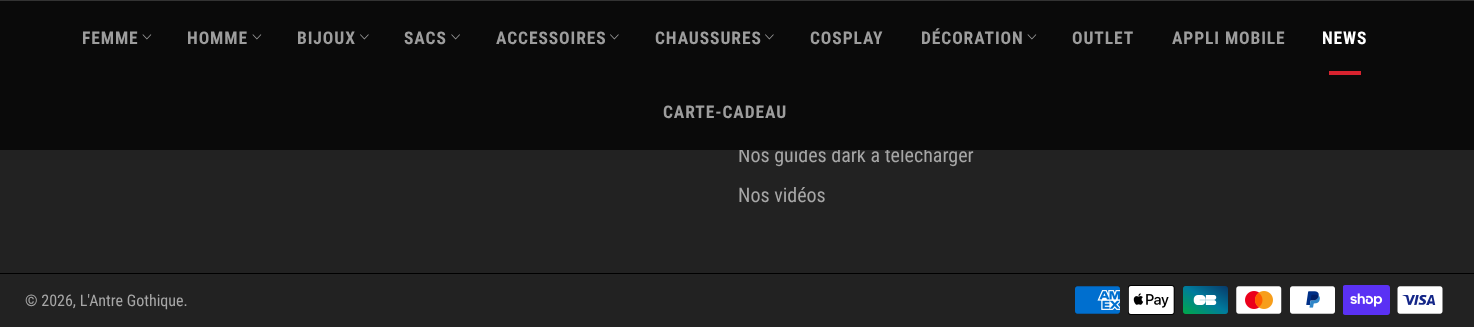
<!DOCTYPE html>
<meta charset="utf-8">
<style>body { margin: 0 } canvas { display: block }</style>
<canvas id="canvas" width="1474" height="327"></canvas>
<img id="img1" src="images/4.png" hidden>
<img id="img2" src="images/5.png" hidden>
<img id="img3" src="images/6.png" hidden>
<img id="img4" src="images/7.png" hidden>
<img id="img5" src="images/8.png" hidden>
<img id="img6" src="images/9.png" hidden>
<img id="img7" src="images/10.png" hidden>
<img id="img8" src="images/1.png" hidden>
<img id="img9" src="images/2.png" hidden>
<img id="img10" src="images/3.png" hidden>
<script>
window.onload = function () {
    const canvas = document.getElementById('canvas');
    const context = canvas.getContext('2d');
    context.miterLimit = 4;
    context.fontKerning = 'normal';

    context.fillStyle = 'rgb(34, 34, 34)';
    context.fillRect(0, 0, 1474, 327);
    context.fillStyle = 'rgb(51, 51, 51)';
    context.fillRect(0, 0, 1474, 1);
    context.fillStyle = 'rgb(0, 0, 0)';
    context.fillRect(0, 273, 1474, 1);
    context.drawImage(document.getElementById('img1'), 1075, 286, 45, 28);
    context.drawImage(document.getElementById('img2'), 1128, 285, 47, 30);
    context.drawImage(document.getElementById('img3'), 1183, 286, 45, 28);
    context.drawImage(document.getElementById('img4'), 1236, 286, 46, 28);
    context.drawImage(document.getElementById('img5'), 1290, 286, 45, 28);
    context.drawImage(document.getElementById('img6'), 1343, 285, 47, 30);
    context.drawImage(document.getElementById('img7'), 1397, 286, 46, 28);
    context.font = '20px Roboto Condensed';
    context.fillStyle = 'rgb(167, 167, 167)';
    context.fillText('Nos guides dark à télécharger', 738, 162);
    context.fillStyle = 'rgb(10, 10, 10)';
    context.fillRect(0, 1, 1474, 149);
    context.letterSpacing = '0.9px';
    context.font = 'bold 17.5px Roboto Condensed';
    context.fillStyle = 'rgb(157, 157, 157)';
    context.fillText('CARTE-CADEAU', 663, 118);
    context.fillStyle = 'rgb(216, 35, 47)';
    context.fillRect(1329, 71, 32, 4);
    context.fillStyle = 'rgb(255, 255, 255)';
    context.fillText('NEWS', 1322, 44);
    context.fillStyle = 'rgb(157, 157, 157)';
    context.fillText('APPLI MOBILE', 1172, 44);
    context.fillText('OUTLET', 1072, 44);
    context.drawImage(document.getElementById('img8'), 1027, 34, 10, 6);
    context.fillText('DÉCORATION', 921, 44);
    context.fillText('COSPLAY', 810, 44);
    context.drawImage(document.getElementById('img9'), 765, 34, 9, 6);
    context.fillText('CHAUSSURES', 655, 44);
    context.drawImage(document.getElementById('img9'), 610, 34, 9, 6);
    context.fillText('ACCESSOIRES', 496, 44);
    context.drawImage(document.getElementById('img10'), 451, 34, 9, 6);
    context.fillText('SACS', 404, 44);
    context.drawImage(document.getElementById('img9'), 360, 34, 9, 6);
    context.fillText('BIJOUX', 297, 44);
    context.drawImage(document.getElementById('img8'), 252, 34, 10, 6);
    context.fillText('HOMME', 187, 44);
    context.drawImage(document.getElementById('img8'), 142, 34, 10, 6);
    context.fillText('FEMME', 82, 44);
    context.letterSpacing = '0px';
    context.font = '20px Roboto Condensed';
    context.fillStyle = 'rgb(167, 167, 167)';
    context.fillText('Nos vidéos', 738, 202);
    context.font = '16px Roboto Condensed';
    context.fillText('© 2026, L\'Antre Gothique.', 25, 306);
};
</script>
